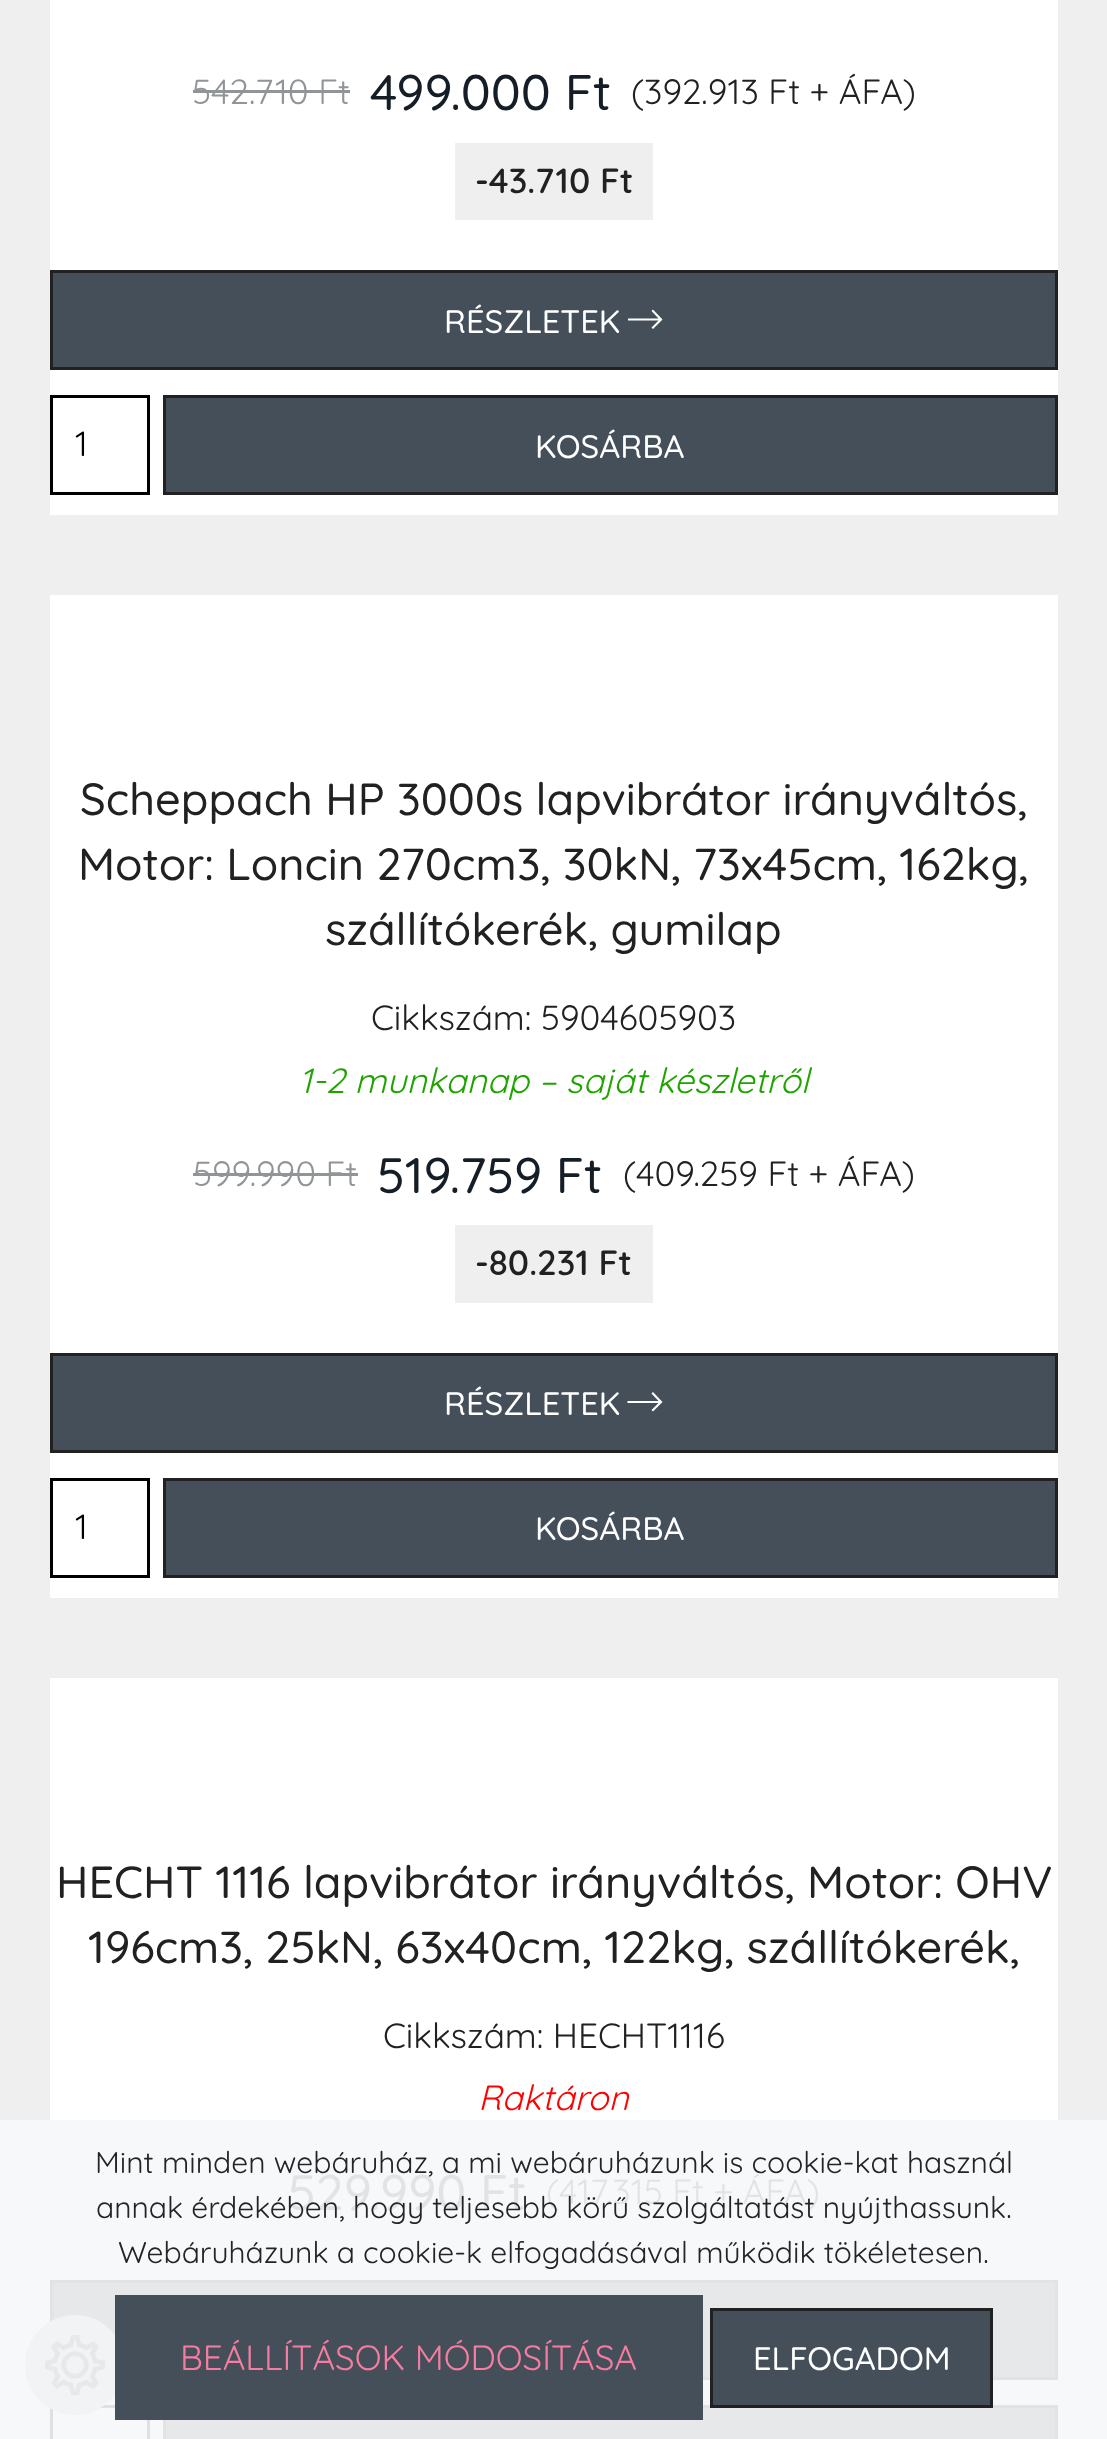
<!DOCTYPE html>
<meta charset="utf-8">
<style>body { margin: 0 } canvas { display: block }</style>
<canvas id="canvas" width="1107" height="2439"></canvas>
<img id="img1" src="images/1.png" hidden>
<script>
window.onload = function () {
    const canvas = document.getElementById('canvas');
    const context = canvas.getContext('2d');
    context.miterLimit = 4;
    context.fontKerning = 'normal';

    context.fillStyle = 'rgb(239, 239, 239)';
    context.fillRect(0, 0, 1107, 2439);
    context.fillStyle = 'rgb(247, 248, 249)';
    context.fillRect(0, 2120, 1107, 319);
    context.fillStyle = 'rgb(255, 255, 255)';
    context.fillRect(50, 0, 1008, 515);
    context.fillStyle = 'rgb(146, 149, 151)';
    context.fillRect(193, 90, 157, 3);
    context.fillStyle = 'rgb(239, 239, 239)';
    context.fillRect(455, 143, 198, 77);
    context.fillStyle = 'rgb(68, 79, 89)';
    context.beginPath();
    context.rect(51.5, 271.5, 1005, 97);
    context.fill();
    context.strokeStyle = 'rgb(33, 33, 33)';
    context.lineWidth = 3;
    context.stroke();
    context.save();
    context.beginPath();
    context.rect(628, 308, 35, 25);
    context.clip();
    context.fillStyle = 'rgb(255, 255, 255)';
    context.beginPath();
    context.moveTo(627.5, 320.5);
    context.lineTo(658.5, 320.5);
    context.lineTo(651.5, 327.5);
    context.lineTo(653, 329);
    context.lineTo(662.5, 319.5);
    context.lineTo(653, 309.5);
    context.lineTo(651.5, 311);
    context.lineTo(658.5, 318.5);
    context.lineTo(627.5, 318.5);
    context.closePath();
    context.fill();
    context.restore();
    context.strokeStyle = 'rgb(0, 0, 0)';
    context.strokeRect(51.5, 396.5, 97, 97);
    context.beginPath();
    context.rect(164.5, 396.5, 892, 97);
    context.fill();
    context.strokeStyle = 'rgb(33, 33, 33)';
    context.stroke();
    context.fillStyle = 'rgb(255, 255, 255)';
    context.fillRect(50, 595, 1008, 1003);
    context.fillStyle = 'rgb(146, 149, 151)';
    context.fillRect(193, 1173, 165, 3);
    context.fillStyle = 'rgb(239, 239, 239)';
    context.fillRect(455, 1225, 198, 78);
    context.fillStyle = 'rgb(68, 79, 89)';
    context.beginPath();
    context.rect(51.5, 1354.5, 1005, 97);
    context.fill();
    context.stroke();
    context.fillStyle = 'rgb(255, 255, 255)';
    context.beginPath();
    context.moveTo(627.5, 1403);
    context.lineTo(658.5, 1403);
    context.lineTo(651.5, 1410);
    context.lineTo(653, 1411.5);
    context.lineTo(662.5, 1402);
    context.lineTo(653, 1392);
    context.lineTo(651.5, 1393.5);
    context.lineTo(658.5, 1401);
    context.lineTo(627.5, 1401);
    context.closePath();
    context.fill();
    context.strokeStyle = 'rgb(0, 0, 0)';
    context.strokeRect(51.5, 1479.5, 97, 97);
    context.fillStyle = 'rgb(68, 79, 89)';
    context.beginPath();
    context.rect(164.5, 1479.5, 892, 97);
    context.fill();
    context.strokeStyle = 'rgb(33, 33, 33)';
    context.stroke();
    context.fillStyle = 'rgb(255, 255, 255)';
    context.fillRect(50, 1678, 1008, 442);
    context.fillStyle = 'rgb(230, 232, 234)';
    context.beginPath();
    context.rect(51.5, 2281.5, 1005, 97);
    context.fill();
    context.strokeStyle = 'rgb(227, 227, 228)';
    context.stroke();
    context.strokeStyle = 'rgb(223, 224, 225)';
    context.strokeRect(51.5, 2406.5, 97, 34);
    context.beginPath();
    context.rect(164.5, 2406.5, 892, 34);
    context.fill();
    context.strokeStyle = 'rgb(227, 227, 228)';
    context.stroke();
    context.fillStyle = 'rgb(242, 243, 244)';
    context.beginPath();
    context.arc(75, 2365, 50, 0, 2 * Math.PI);
    context.fill();
    context.drawImage(document.getElementById('img1'), 45, 2335, 60, 60);
    context.fillStyle = 'rgb(68, 79, 89)';
    context.fillRect(115, 2295, 588, 125);
    context.beginPath();
    context.rect(711.5, 2309.5, 280, 97);
    context.fill();
    context.strokeStyle = 'rgb(33, 33, 33)';
    context.stroke();
    context.font = '35px Quicksand';
    context.fillStyle = 'rgb(146, 149, 151)';
    context.fillText('542.710 Ft', 192, 104);
    context.font = '500 50px Quicksand';
    context.fillStyle = 'rgb(21, 30, 38)';
    context.fillText('499.000 Ft', 370, 110);
    context.font = '35px Quicksand';
    context.fillStyle = 'rgb(33, 33, 33)';
    context.fillText('(392.913 Ft + ÁFA)', 631, 104);
    context.font = '600 35px Quicksand';
    context.fillText('-43.710 Ft', 475, 193);
    context.font = '500 32.5px Quicksand';
    context.fillStyle = 'rgb(255, 255, 255)';
    context.fillText('RÉSZLETEK', 444, 333);
    context.font = '35px Quicksand';
    context.fillStyle = 'rgb(0, 0, 0)';
    context.fillText('1', 75, 456);
    context.font = '500 32.5px Quicksand';
    context.fillStyle = 'rgb(255, 255, 255)';
    context.fillText('KOSÁRBA', 535, 458);
    context.font = '500 45px Quicksand';
    context.fillStyle = 'rgb(33, 33, 33)';
    context.fillText('Scheppach HP 3000s lapvibrátor irányváltós,', 80, 815);
    context.fillText('Motor: Loncin 270cm3, 30kN, 73x45cm, 162kg,', 78, 880);
    context.fillText('szállítókerék, gumilap', 325, 945);
    context.font = '35px Quicksand';
    context.fillText('Cikkszám: 5904605903', 371, 1030);
    context.font = 'italic 35px Quicksand';
    context.fillStyle = 'rgb(30, 163, 0)';
    context.fillText('1-2 munkanap – saját készletről', 299, 1093);
    context.font = '35px Quicksand';
    context.fillStyle = 'rgb(146, 149, 151)';
    context.fillText('599.990 Ft', 193, 1186);
    context.font = '500 50px Quicksand';
    context.fillStyle = 'rgb(21, 30, 38)';
    context.fillText('519.759 Ft', 377, 1193);
    context.font = '35px Quicksand';
    context.fillStyle = 'rgb(33, 33, 33)';
    context.fillText('(409.259 Ft + ÁFA)', 623, 1186);
    context.font = '600 35px Quicksand';
    context.fillText('-80.231 Ft', 475, 1275);
    context.font = '500 32.5px Quicksand';
    context.fillStyle = 'rgb(255, 255, 255)';
    context.fillText('RÉSZLETEK', 444, 1415);
    context.font = '35px Quicksand';
    context.fillStyle = 'rgb(0, 0, 0)';
    context.fillText('1', 75, 1539);
    context.font = '500 32.5px Quicksand';
    context.fillStyle = 'rgb(255, 255, 255)';
    context.fillText('KOSÁRBA', 535, 1540);
    context.font = '500 45px Quicksand';
    context.fillStyle = 'rgb(33, 33, 33)';
    context.fillText('HECHT 1116 lapvibrátor irányváltós, Motor: OHV', 56, 1898);
    context.fillText('196cm3, 25kN, 63x40cm, 122kg, szállítókerék,', 88, 1963);
    context.font = '35px Quicksand';
    context.fillText('Cikkszám: HECHT1116', 383, 2048);
    context.font = 'italic 35px Quicksand';
    context.fillStyle = 'rgb(255, 0, 0)';
    context.fillText('Raktáron', 478, 2110);
    context.font = '500 50px Quicksand';
    context.fillStyle = 'rgb(225, 227, 229)';
    context.fillText('529.990 Ft', 288, 2210);
    context.font = '35px Quicksand';
    context.fillText('(417.315 Ft + ÁFA)', 546, 2204);
    context.font = '30px Quicksand';
    context.fillStyle = 'rgb(33, 37, 41)';
    context.fillText('Mint minden webáruház, a mi webáruházunk is cookie-kat használ', 95, 2173);
    context.fillText('annak érdekében, hogy teljesebb körű szolgáltatást nyújthassunk.', 96, 2218);
    context.fillText('Webáruházunk a cookie-k elfogadásával működik tökéletesen.', 118, 2263);
    context.font = '35px Quicksand';
    context.fillStyle = 'rgb(246, 125, 161)';
    context.fillText('BEÁLLÍTÁSOK MÓDOSÍTÁSA', 180, 2370);
    context.font = '500 32.5px Quicksand';
    context.fillStyle = 'rgb(255, 255, 255)';
    context.fillText('ELFOGADOM', 753, 2370);
};
</script>
